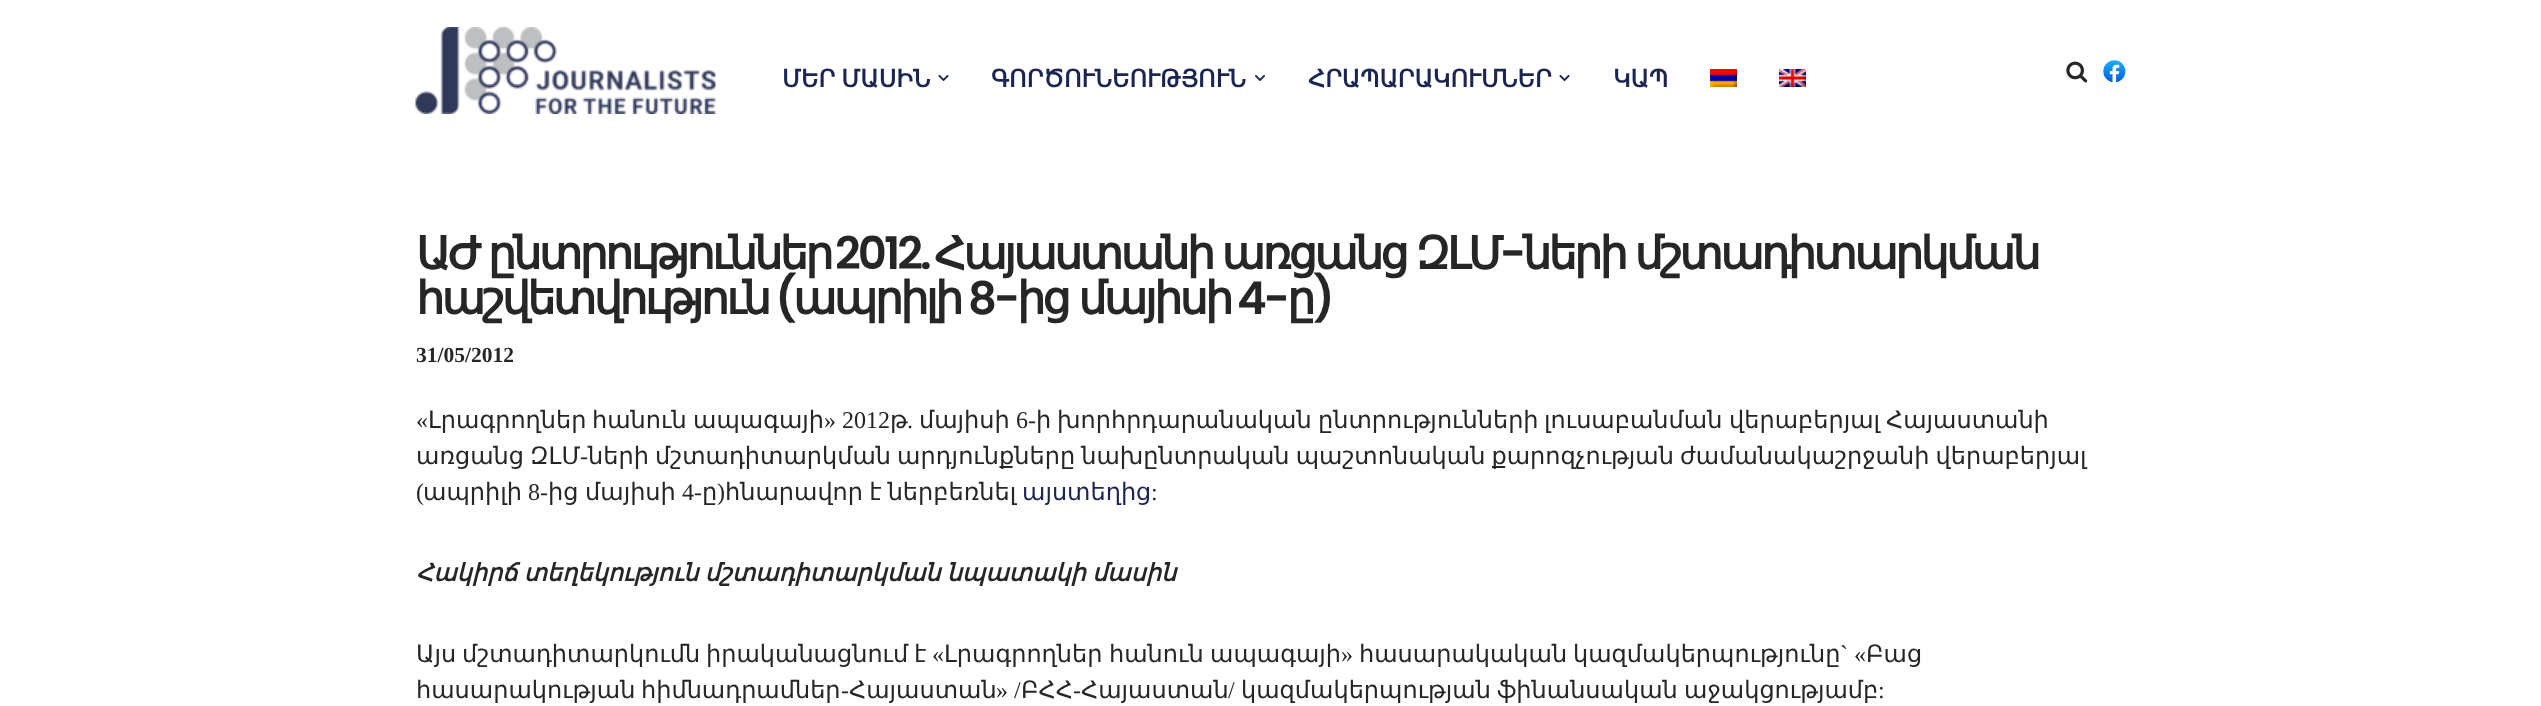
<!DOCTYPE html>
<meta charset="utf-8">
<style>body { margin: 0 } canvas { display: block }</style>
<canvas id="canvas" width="2541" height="706"></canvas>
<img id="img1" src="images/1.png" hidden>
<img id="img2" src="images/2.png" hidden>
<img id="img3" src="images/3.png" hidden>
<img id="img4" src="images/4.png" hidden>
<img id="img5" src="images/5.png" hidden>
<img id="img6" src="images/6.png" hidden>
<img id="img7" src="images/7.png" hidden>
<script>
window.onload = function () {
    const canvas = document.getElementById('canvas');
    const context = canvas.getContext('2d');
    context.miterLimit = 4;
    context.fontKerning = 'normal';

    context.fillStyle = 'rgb(255, 255, 255)';
    context.fillRect(0, 0, 2541, 706);
    context.drawImage(document.getElementById('img1'), 415, 27, 301, 87);
    context.drawImage(document.getElementById('img2'), 938, 74, 11, 8);
    context.drawImage(document.getElementById('img3'), 1255, 75, 10, 6);
    context.drawImage(document.getElementById('img2'), 1559, 74, 11, 8);
    context.drawImage(document.getElementById('img4'), 1710, 69, 27, 18);
    context.drawImage(document.getElementById('img5'), 1779, 69, 27, 18);
    context.drawImage(document.getElementById('img6'), 2066, 61, 22, 22);
    context.drawImage(document.getElementById('img7'), 2103, 60, 23, 23);
    context.wordSpacing = '-1.5px';
    context.font = 'bold 24px DejaVu Sans';
    context.fillStyle = 'rgb(26, 37, 82)';
    context.fillText('ՄԵՐ ՄԱՍԻՆ', 782, 87);
    context.wordSpacing = '0px';
    context.fillText('ԳՈՐԾՈՒՆԵՈՒԹՅՈՒՆ', 991, 87);
    context.fillText('ՀՐԱՊԱՐԱԿՈՒՄՆԵՐ', 1308, 87);
    context.fillText('ԿԱՊ', 1613, 87);
    context.letterSpacing = '-3px';
    context.wordSpacing = '-2px';
    context.font = 'bold 45px DejaVu Sans';
    context.fillStyle = 'rgb(39, 38, 38)';
    context.fillText('ԱԺ ընտրություններ', 416, 269);
    context.wordSpacing = '0px';
    context.font = '600 45px Poppins';
    context.fillText('2012.', 835, 269);
    context.wordSpacing = '-2px';
    context.font = 'bold 45px DejaVu Sans';
    context.fillText('Հայաստանի առցանց ԶԼՄ', 934, 269);
    context.wordSpacing = '0px';
    context.font = '600 45px Poppins';
    context.fillText('-', 1500, 269);
    context.wordSpacing = '-2px';
    context.font = 'bold 45px DejaVu Sans';
    context.fillText('ների մշտադիտարկման', 1523, 269);
    context.wordSpacing = '0px';
    context.fillText('հաշվետվություն', 416, 314);
    context.font = '600 45px Poppins';
    context.fillText('(', 775, 314);
    context.font = 'bold 45px DejaVu Sans';
    context.fillText('ապրիլի', 793, 314);
    context.font = '600 45px Poppins';
    context.fillText('8-', 968, 314);
    context.wordSpacing = '-1px';
    context.font = 'bold 45px DejaVu Sans';
    context.fillText('ից մայիսի', 1017, 314);
    context.wordSpacing = '0px';
    context.font = '600 45px Poppins';
    context.fillText('4-', 1237, 314);
    context.font = 'bold 45px DejaVu Sans';
    context.fillText('ը', 1287, 314);
    context.font = '600 45px Poppins';
    context.fillText(')', 1313, 314);
    context.letterSpacing = '0px';
    context.font = 'bold 21.5px Liberation Serif';
    context.fillText('31/05/2012', 416, 362);
    context.font = '24px Liberation Serif';
    context.fillText('«', 416, 428);
    context.font = '24px DejaVu Sans';
    context.fillText('Լրագրողներ', 428, 428);
    context.fillText('հանուն', 592, 428);
    context.fillText('ապագայի', 693, 428);
    context.font = '24px Liberation Serif';
    context.fillText('» 2012', 824, 428);
    context.font = '24px DejaVu Sans';
    context.fillText('թ', 890, 428);
    context.font = '24px Liberation Serif';
    context.fillText('.', 907, 428);
    context.font = '24px DejaVu Sans';
    context.fillText('մայիսի', 919, 428);
    context.font = '24px Liberation Serif';
    context.fillText('6-', 1016, 428);
    context.font = '24px DejaVu Sans';
    context.fillText('ի', 1036, 428);
    context.fillText('խորհրդարանական', 1057, 428);
    context.fillText('ընտրությունների', 1318, 428);
    context.fillText('լուսաբանման', 1544, 428);
    context.fillText('վերաբերյալ', 1729, 428);
    context.fillText('Հայաստանի', 1886, 428);
    context.wordSpacing = '-1.5px';
    context.fillText('առցանց ԶԼՄ', 416, 464);
    context.wordSpacing = '0px';
    context.font = '24px Liberation Serif';
    context.fillText('-', 580, 464);
    context.wordSpacing = '-1.5px';
    context.font = '24px DejaVu Sans';
    context.fillText('ների մշտադիտարկման արդյունքները նախընտրական պաշտոնական քարոզչության ժամանակաշրջանի վերաբերյալ', 588, 464);
    context.wordSpacing = '0px';
    context.font = '24px Liberation Serif';
    context.fillText('(', 416, 500);
    context.font = '24px DejaVu Sans';
    context.fillText('ապրիլի', 423, 500);
    context.font = '24px Liberation Serif';
    context.fillText('8-', 528, 500);
    context.wordSpacing = '-1px';
    context.font = '24px DejaVu Sans';
    context.fillText('ից մայիսի', 548, 500);
    context.wordSpacing = '0px';
    context.font = '24px Liberation Serif';
    context.fillText('4-', 682, 500);
    context.font = '24px DejaVu Sans';
    context.fillText('ը', 702, 500);
    context.font = '24px Liberation Serif';
    context.fillText(')', 717, 500);
    context.wordSpacing = '-1.5px';
    context.font = '24px DejaVu Sans';
    context.fillText('հնարավոր է ներբեռնել', 725, 500);
    context.wordSpacing = '0px';
    context.fillStyle = 'rgb(26, 37, 82)';
    context.fillText('այստեղից', 1022, 500);
    context.font = '24px Liberation Serif';
    context.fillStyle = 'rgb(39, 38, 38)';
    context.fillText(':', 1151, 500);
    context.wordSpacing = '-1.5px';
    context.font = 'italic bold 24px DejaVu Sans';
    context.fillText('Հակիրճ տեղեկություն մշտադիտարկման նպատակի մասին', 416, 581);
    context.wordSpacing = '0px';
    context.font = '24px DejaVu Sans';
    context.fillText('Այս', 416, 662);
    context.fillText('մշտադիտարկումն', 462, 662);
    context.fillText('իրականացնում', 706, 662);
    context.fillText('է', 914, 662);
    context.font = '24px Liberation Serif';
    context.fillText('«', 932, 662);
    context.font = '24px DejaVu Sans';
    context.fillText('Լրագրողներ', 944, 662);
    context.fillText('հանուն', 1109, 662);
    context.fillText('ապագայի', 1210, 662);
    context.font = '24px Liberation Serif';
    context.fillText('»', 1341, 662);
    context.font = '24px DejaVu Sans';
    context.fillText('հասարակական', 1359, 662);
    context.fillText('կազմակերպությունը', 1573, 662);
    context.font = '24px Liberation Serif';
    context.fillText('` «', 1840, 662);
    context.font = '24px DejaVu Sans';
    context.fillText('Բաց', 1866, 662);
    context.fillText('հասարակության', 416, 698);
    context.fillText('հիմնադրամներ', 641, 698);
    context.font = '24px Liberation Serif';
    context.fillText('-', 841, 698);
    context.font = '24px DejaVu Sans';
    context.fillText('Հայաստան', 849, 698);
    context.font = '24px Liberation Serif';
    context.fillText('» /', 996, 698);
    context.font = '24px DejaVu Sans';
    context.fillText('ԲՀՀ', 1021, 698);
    context.font = '24px Liberation Serif';
    context.fillText('-', 1073, 698);
    context.font = '24px DejaVu Sans';
    context.fillText('Հայաստան', 1081, 698);
    context.font = '24px Liberation Serif';
    context.fillText('/', 1228, 698);
    context.font = '24px DejaVu Sans';
    context.fillText('կազմակերպության', 1241, 698);
    context.fillText('ֆինանսական', 1497, 698);
    context.fillText('աջակցությամբ', 1684, 698);
    context.font = '24px Liberation Serif';
    context.fillText(':', 1878, 698);
};
</script>
